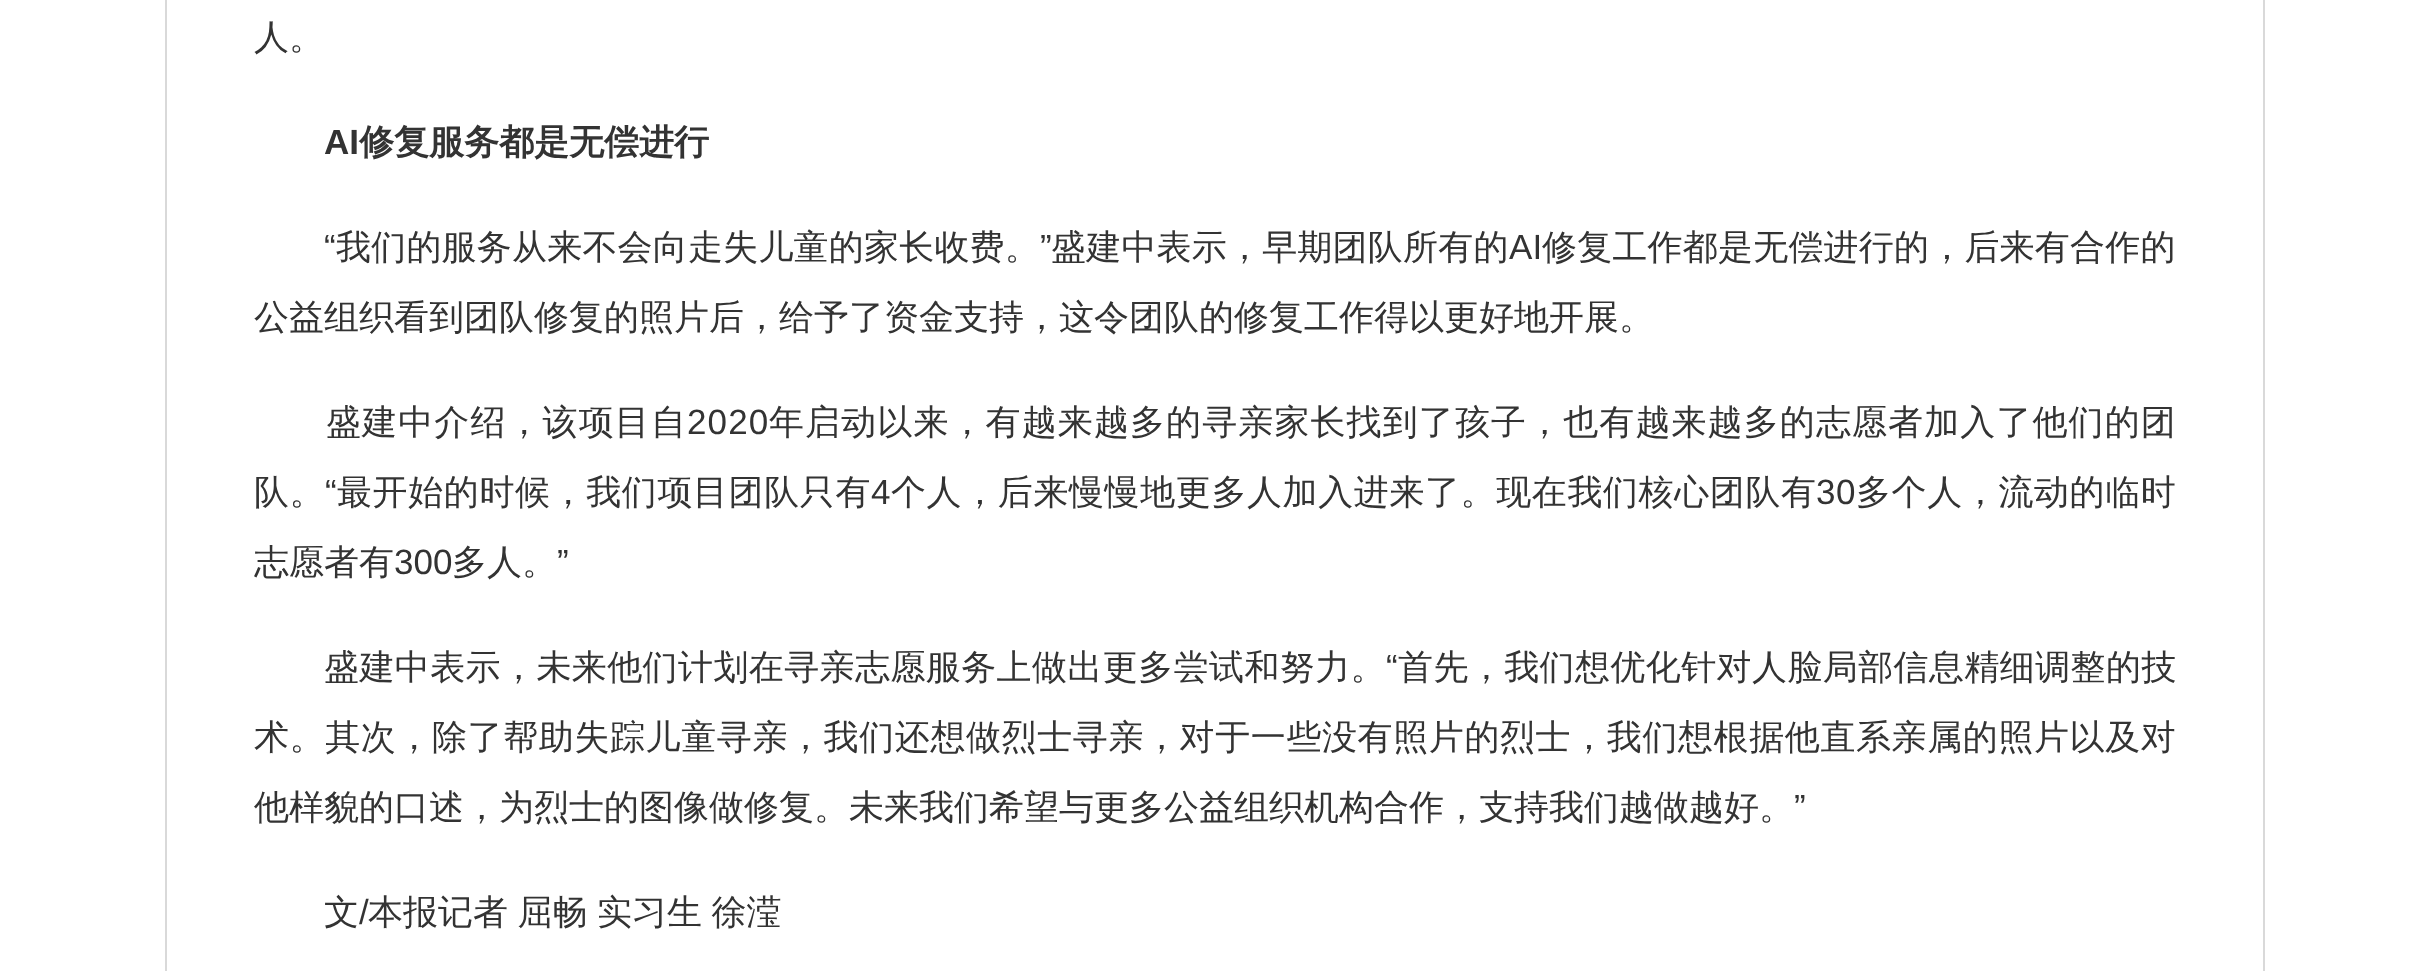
<!DOCTYPE html>
<meta charset="utf-8">
<style>body { margin: 0 } canvas { display: block }</style>
<canvas id="canvas" width="2428" height="971"></canvas>
<script>
window.onload = function () {
    const canvas = document.getElementById('canvas');
    const context = canvas.getContext('2d');
    context.miterLimit = 4;
    context.fontKerning = 'normal';

    context.fillStyle = 'rgb(255, 255, 255)';
    context.fillRect(0, 0, 2428, 971);
    context.strokeStyle = 'rgb(217, 217, 217)';
    context.lineWidth = 2;
    context.strokeRect(166, -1, 2098, 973);
    context.font = '500 35px WenQuanYi Zen Hei';
    context.fillStyle = 'rgb(51, 51, 51)';
    context.fillText('人。', 254, 49);
    context.font = 'bold 35px Liberation Sans';
    context.fillText('AI', 324, 154);
    context.font = 'bold 35px WenQuanYi Zen Hei';
    context.fillText('修复服务都是无偿进行', 359, 154);
    context.letterSpacing = '0.2px';
    context.font = '35px Liberation Sans';
    context.fillText('“', 324, 259);
    context.font = '500 35px WenQuanYi Zen Hei';
    context.fillText('我们的服务从来不会向走失儿童的家长收费。', 336, 259);
    context.font = '35px Liberation Sans';
    context.fillText('”', 1040, 259);
    context.font = '500 35px WenQuanYi Zen Hei';
    context.fillText('盛建中表示，早期团队所有的', 1051, 259);
    context.font = '35px Liberation Sans';
    context.fillText('AI', 1509, 259);
    context.font = '500 35px WenQuanYi Zen Hei';
    context.fillText('修复工作都是无偿进行的，后来有合作的', 1542, 259);
    context.letterSpacing = '0px';
    context.fillText('公益组织看到团队修复的照片后，给予了资金支持，这令团队的修复工作得以更好地开展。', 254, 329);
    context.letterSpacing = '1.1px';
    context.fillText('盛建中介绍，该项目自', 326, 434);
    context.font = '35px Liberation Sans';
    context.fillText('2020', 687, 434);
    context.font = '500 35px WenQuanYi Zen Hei';
    context.fillText('年启动以来，有越来越多的寻亲家长找到了孩子，也有越来越多的志愿者加入了他们的团', 769, 434);
    context.letterSpacing = '0.6px';
    context.fillText('队。', 254, 504);
    context.font = '35px Liberation Sans';
    context.fillText('“', 325, 504);
    context.font = '500 35px WenQuanYi Zen Hei';
    context.fillText('最开始的时候，我们项目团队只有', 337, 504);
    context.font = '35px Liberation Sans';
    context.fillText('4', 871, 504);
    context.font = '500 35px WenQuanYi Zen Hei';
    context.fillText('个人，后来慢慢地更多人加入进来了。现在我们核心团队有', 891, 504);
    context.font = '35px Liberation Sans';
    context.fillText('30', 1816, 504);
    context.font = '500 35px WenQuanYi Zen Hei';
    context.fillText('多个人，流动的临时', 1856, 504);
    context.letterSpacing = '0px';
    context.fillText('志愿者有', 254, 574);
    context.font = '35px Liberation Sans';
    context.fillText('300', 394, 574);
    context.font = '500 35px WenQuanYi Zen Hei';
    context.fillText('多人。', 452, 574);
    context.font = '35px Liberation Sans';
    context.fillText('”', 557, 574);
    context.letterSpacing = '0.4px';
    context.font = '500 35px WenQuanYi Zen Hei';
    context.fillText('盛建中表示，未来他们计划在寻亲志愿服务上做出更多尝试和努力。', 324, 679);
    context.font = '35px Liberation Sans';
    context.fillText('“', 1386, 679);
    context.font = '500 35px WenQuanYi Zen Hei';
    context.fillText('首先，我们想优化针对人脸局部信息精细调整的技', 1398, 679);
    context.letterSpacing = '0.6px';
    context.fillText('术。其次，除了帮助失踪儿童寻亲，我们还想做烈士寻亲，对于一些没有照片的烈士，我们想根据他直系亲属的照片以及对', 254, 749);
    context.letterSpacing = '0px';
    context.fillText('他样貌的口述，为烈士的图像做修复。未来我们希望与更多公益组织机构合作，支持我们越做越好。', 254, 819);
    context.font = '35px Liberation Sans';
    context.fillText('”', 1794, 819);
    context.font = '500 35px WenQuanYi Zen Hei';
    context.fillText('文', 324, 924);
    context.font = '35px Liberation Sans';
    context.fillText('/', 359, 924);
    context.wordSpacing = '-1px';
    context.font = '500 35px WenQuanYi Zen Hei';
    context.fillText('本报记者 屈畅 实习生 徐滢', 368, 924);
};
</script>
